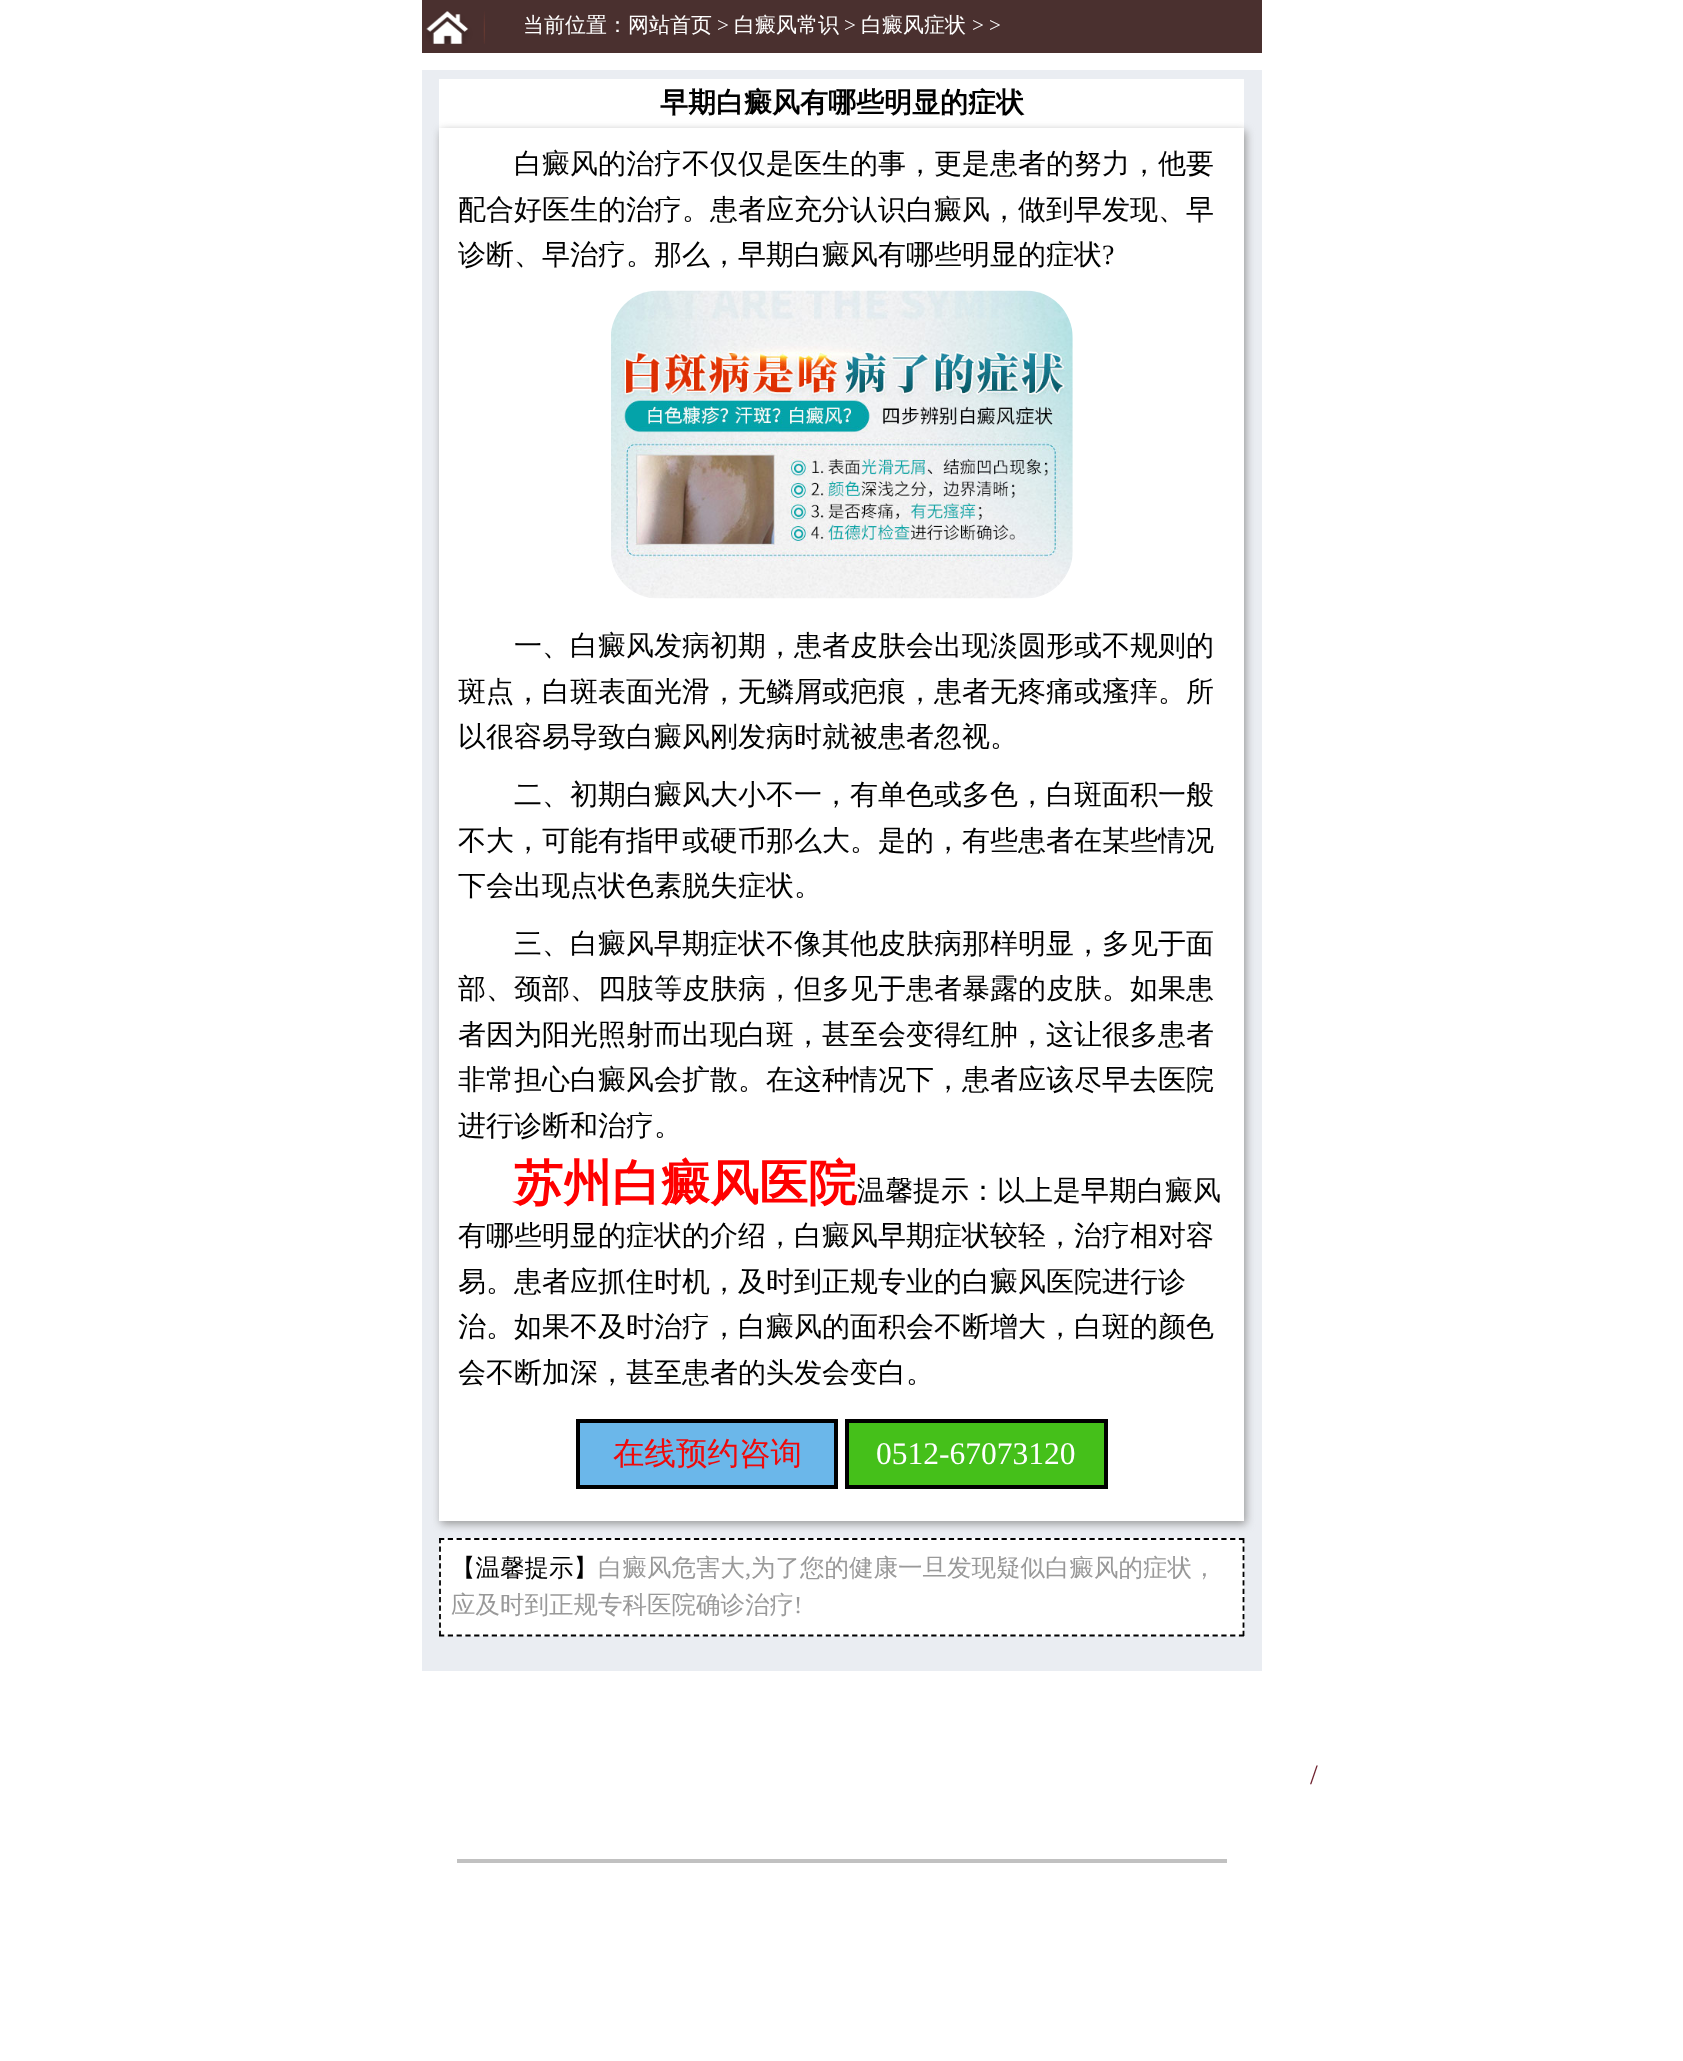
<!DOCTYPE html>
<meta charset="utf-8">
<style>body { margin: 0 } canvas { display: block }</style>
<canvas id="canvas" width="1683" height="2061"></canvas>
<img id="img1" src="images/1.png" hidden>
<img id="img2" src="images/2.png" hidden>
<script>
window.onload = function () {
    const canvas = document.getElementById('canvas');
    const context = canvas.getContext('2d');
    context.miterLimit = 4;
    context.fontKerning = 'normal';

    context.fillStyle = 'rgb(255, 255, 255)';
    context.fillRect(0, 0, 1683, 2061);
    context.fillStyle = 'rgb(74, 48, 47)';
    context.fillRect(422, 0, 840, 53);
    context.drawImage(document.getElementById('img1'), 426, 11, 59, 33);
    context.fillStyle = 'rgb(234, 237, 242)';
    context.fillRect(422, 70, 840, 1601);
    context.fillStyle = 'rgb(255, 255, 255)';
    context.fillRect(439, 79, 805, 49);
    context.fillStyle = 'rgb(153, 153, 153)';
    context.filter = 'blur(4.5px)';
    context.beginPath();
    context.rect(441, 131, 805, 1393);
    context.fill();
    context.filter = 'none';
    context.fillStyle = 'rgb(255, 255, 255)';
    context.fillRect(439, 128, 805, 1393);
    context.drawImage(document.getElementById('img2'), 611, 290, 462, 309);
    context.fillStyle = 'rgb(107, 183, 234)';
    context.beginPath();
    context.rect(578, 1421, 258, 66);
    context.fill();
    context.strokeStyle = 'rgb(0, 0, 0)';
    context.lineWidth = 4;
    context.stroke();
    context.fillStyle = 'rgb(69, 192, 26)';
    context.beginPath();
    context.rect(847, 1421, 259, 66);
    context.fill();
    context.stroke();
    context.fillStyle = 'rgb(255, 255, 255)';
    context.fillRect(439, 1538, 805, 98);
    context.beginPath();
    context.moveTo(439, 1539);
    context.lineTo(1244, 1539);
    context.lineWidth = 1.8;
    context.setLineDash([5.25, 3.54]);
    context.stroke();
    context.beginPath();
    context.moveTo(1243.5, 1538);
    context.lineTo(1243.5, 1636);
    context.setLineDash([5.25, 3.19]);
    context.stroke();
    context.beginPath();
    context.moveTo(439, 1635.5);
    context.lineTo(1244, 1635.5);
    context.setLineDash([5.25, 3.54]);
    context.stroke();
    context.beginPath();
    context.moveTo(440, 1538);
    context.lineTo(440, 1636);
    context.setLineDash([5.25, 3.19]);
    context.stroke();
    context.fillStyle = 'rgb(193, 193, 193)';
    context.fillRect(457, 1859, 770, 4);
    context.font = '500 21px WenQuanYi Zen Hei';
    context.fillStyle = 'rgb(255, 255, 255)';
    context.fillText('当前位置：网站首页', 523, 32);
    context.font = '21px Liberation Serif';
    context.fillText('>', 717, 32);
    context.font = '500 21px WenQuanYi Zen Hei';
    context.fillText('白癜风常识', 734, 32);
    context.font = '21px Liberation Serif';
    context.fillText('>', 844, 32);
    context.font = '500 21px WenQuanYi Zen Hei';
    context.fillText('白癜风症状', 861, 32);
    context.font = '21px Liberation Serif';
    context.fillText('> >', 972, 32);
    context.font = 'bold 28px WenQuanYi Zen Hei';
    context.fillStyle = 'rgb(0, 0, 0)';
    context.fillText('早期白癜风有哪些明显的症状', 660, 112);
    context.font = '500 28px WenQuanYi Zen Hei';
    context.fillText('白癜风的治疗不仅仅是医生的事，更是患者的努力，他要', 514, 173);
    context.fillText('配合好医生的治疗。患者应充分认识白癜风，做到早发现、早', 458, 219);
    context.fillText('诊断、早治疗。那么，早期白癜风有哪些明显的症状', 458, 264);
    context.font = '28px Liberation Serif';
    context.fillText('?', 1102, 264);
    context.font = '500 28px WenQuanYi Zen Hei';
    context.fillText('一、白癜风发病初期，患者皮肤会出现淡圆形或不规则的', 514, 655);
    context.fillText('斑点，白斑表面光滑，无鳞屑或疤痕，患者无疼痛或瘙痒。所', 458, 701);
    context.fillText('以很容易导致白癜风刚发病时就被患者忽视。', 458, 746);
    context.fillText('二、初期白癜风大小不一，有单色或多色，白斑面积一般', 514, 804);
    context.fillText('不大，可能有指甲或硬币那么大。是的，有些患者在某些情况', 458, 850);
    context.fillText('下会出现点状色素脱失症状。', 458, 895);
    context.fillText('三、白癜风早期症状不像其他皮肤病那样明显，多见于面', 514, 953);
    context.fillText('部、颈部、四肢等皮肤病，但多见于患者暴露的皮肤。如果患', 458, 998);
    context.fillText('者因为阳光照射而出现白斑，甚至会变得红肿，这让很多患者', 458, 1044);
    context.fillText('非常担心白癜风会扩散。在这种情况下，患者应该尽早去医院', 458, 1089);
    context.fillText('进行诊断和治疗。', 458, 1135);
    context.font = 'bold 49px WenQuanYi Zen Hei';
    context.fillStyle = 'rgb(255, 0, 0)';
    context.fillText('苏州白癜风医院', 514, 1200);
    context.font = '500 28px WenQuanYi Zen Hei';
    context.fillStyle = 'rgb(0, 0, 0)';
    context.fillText('温馨提示：以上是早期白癜风', 857, 1200);
    context.fillText('有哪些明显的症状的介绍，白癜风早期症状较轻，治疗相对容', 458, 1245);
    context.fillText('易。患者应抓住时机，及时到正规专业的白癜风医院进行诊', 458, 1291);
    context.fillText('治。如果不及时治疗，白癜风的面积会不断增大，白斑的颜色', 458, 1336);
    context.fillText('会不断加深，甚至患者的头发会变白。', 458, 1382);
    context.font = '500 31.5px WenQuanYi Zen Hei';
    context.fillStyle = 'rgb(239, 10, 10)';
    context.fillText('在线预约咨询', 613, 1464);
    context.font = '31.5px Liberation Serif';
    context.fillStyle = 'rgb(255, 255, 255)';
    context.fillText('0512-67073120', 876, 1464);
    context.font = '500 24.5px WenQuanYi Zen Hei';
    context.fillStyle = 'rgb(0, 0, 0)';
    context.fillText('【温馨提示】', 451, 1576);
    context.fillStyle = 'rgb(153, 153, 153)';
    context.fillText('白癜风危害大', 598, 1576);
    context.font = '24.5px Liberation Serif';
    context.fillText(',', 745, 1576);
    context.font = '500 24.5px WenQuanYi Zen Hei';
    context.fillText('为了您的健康一旦发现疑似白癜风的症状，', 751, 1576);
    context.fillText('应及时到正规专科医院确诊治疗', 451, 1613);
    context.font = '24.5px Liberation Serif';
    context.fillText('!', 794, 1613);
    context.font = '28px Liberation Serif';
    context.fillStyle = 'rgb(109, 31, 44)';
    context.fillText('/', 1310, 1784);
};
</script>
